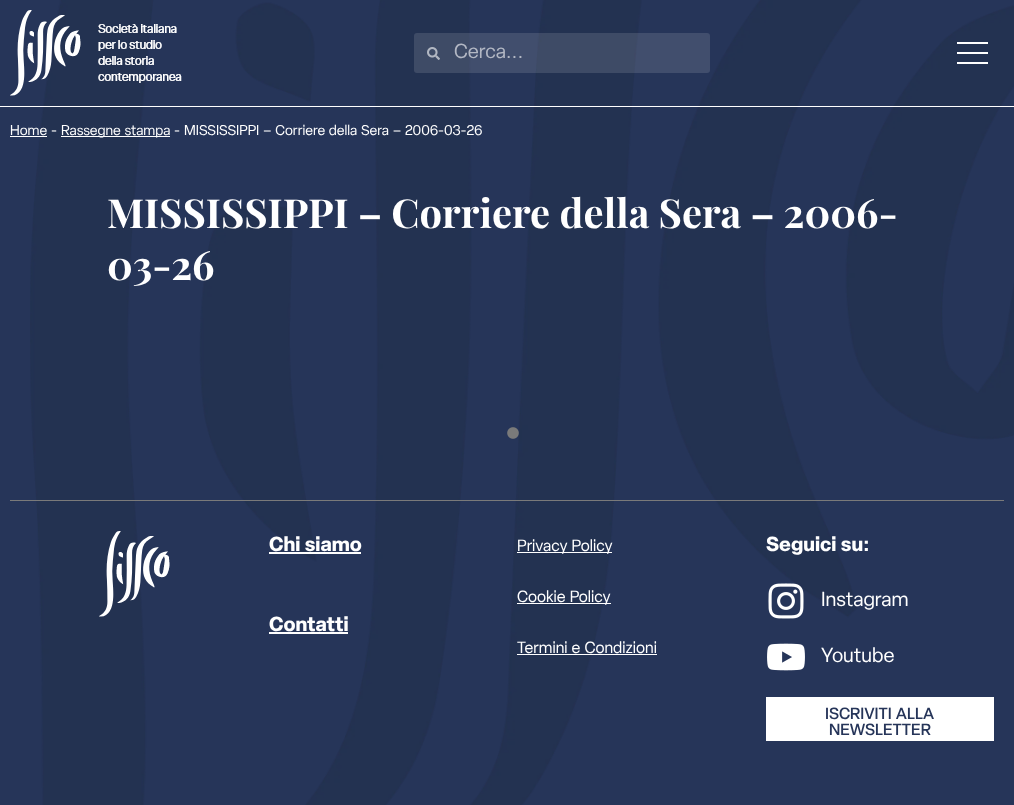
<!DOCTYPE html>
<meta charset="utf-8">
<style>body { margin: 0 } canvas { display: block }</style>
<canvas id="canvas" width="1014" height="805"></canvas>
<img id="img1" src="images/1.png" hidden>
<img id="img2" src="images/2.png" hidden>
<img id="img3" src="images/3.png" hidden>
<img id="img4" src="images/4.png" hidden>
<img id="img5" src="images/5.png" hidden>
<img id="img6" src="images/6.png" hidden>
<img id="img7" src="images/7.png" hidden>
<script>
window.onload = function () {
    const canvas = document.getElementById('canvas');
    const context = canvas.getContext('2d');
    context.miterLimit = 4;
    context.fontKerning = 'normal';

    context.fillStyle = 'rgb(38, 53, 89)';
    context.fillRect(0, 0, 1014, 805);
    context.drawImage(document.getElementById('img1'), 30, 0, 984, 805);
    context.fillStyle = 'rgb(255, 255, 255)';
    context.fillRect(0, 106, 1014, 1);
    context.drawImage(document.getElementById('img2'), 10, 10, 172, 86);
    context.fillStyle = 'rgba(249, 249, 249, 0.13)';
    context.beginPath();
    context.roundRect(414, 33, 296, 40, 3);
    context.fill();
    context.drawImage(document.getElementById('img3'), 427, 47, 13, 13);
    context.fillStyle = 'rgb(255, 255, 255)';
    context.fillRect(957, 52, 31, 2);
    context.fillRect(957, 42, 31, 2);
    context.fillRect(957, 62, 31, 2);
    context.fillRect(10, 136, 37, 1);
    context.fillRect(61, 136, 109, 1);
    context.fillStyle = 'rgb(122, 122, 122)';
    context.fillRect(10, 500, 994, 1);
    context.drawImage(document.getElementById('img4'), 507, 427, 12, 12);
    context.drawImage(document.getElementById('img5'), 99, 531, 71, 86);
    context.fillStyle = 'rgb(255, 255, 255)';
    context.fillRect(269, 552, 92, 2);
    context.fillRect(269, 632, 79, 2);
    context.fillRect(517, 552, 95, 1);
    context.fillRect(517, 603, 94, 1);
    context.fillRect(517, 654, 140, 1);
    context.drawImage(document.getElementById('img6'), 768, 583, 36, 36);
    context.drawImage(document.getElementById('img7'), 767, 643, 38, 28);
    context.fillRect(766, 697, 228, 44);
    context.font = '20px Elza';
    context.fillStyle = 'rgb(179, 184, 196)';
    context.fillText('Cerca...', 454, 58);
    context.font = '14px Elza';
    context.fillStyle = 'rgb(255, 255, 255)';
    context.fillText('Home', 10, 135);
    context.fillText('-', 51, 135);
    context.wordSpacing = '1px';
    context.fillText('Rassegne stampa', 61, 135);
    context.wordSpacing = '0px';
    context.fillText('-', 174, 135);
    context.wordSpacing = '1px';
    context.fillText('MISSISSIPPI – Corriere della Sera – 2006-03-26', 184, 135);
    context.wordSpacing = '0px';
    context.font = 'bold 40px Playfair Display';
    context.fillText('MISSISSIPPI – Corriere della Sera – 2006-', 107, 228);
    context.fillText('03-26', 107, 280);
    context.wordSpacing = '1px';
    context.font = 'bold 20px Elza';
    context.fillText('Chi siamo', 269, 551);
    context.wordSpacing = '0px';
    context.fillText('Contatti', 269, 631);
    context.wordSpacing = '1px';
    context.font = '16px Elza';
    context.fillText('Privacy Policy', 517, 551);
    context.fillText('Cookie Policy', 517, 602);
    context.fillText('Termini e Condizioni', 517, 653);
    context.font = 'bold 20px Elza';
    context.fillText('Seguici su:', 766, 551);
    context.wordSpacing = '0px';
    context.font = '20px Elza';
    context.fillText('Instagram', 821, 606);
    context.fillText('Youtube', 821, 662);
    context.wordSpacing = '1px';
    context.font = '500 16px Elza';
    context.fillStyle = 'rgb(38, 53, 89)';
    context.fillText('ISCRIVITI ALLA', 825, 719);
    context.wordSpacing = '0px';
    context.fillText('NEWSLETTER', 829, 735);
};
</script>
